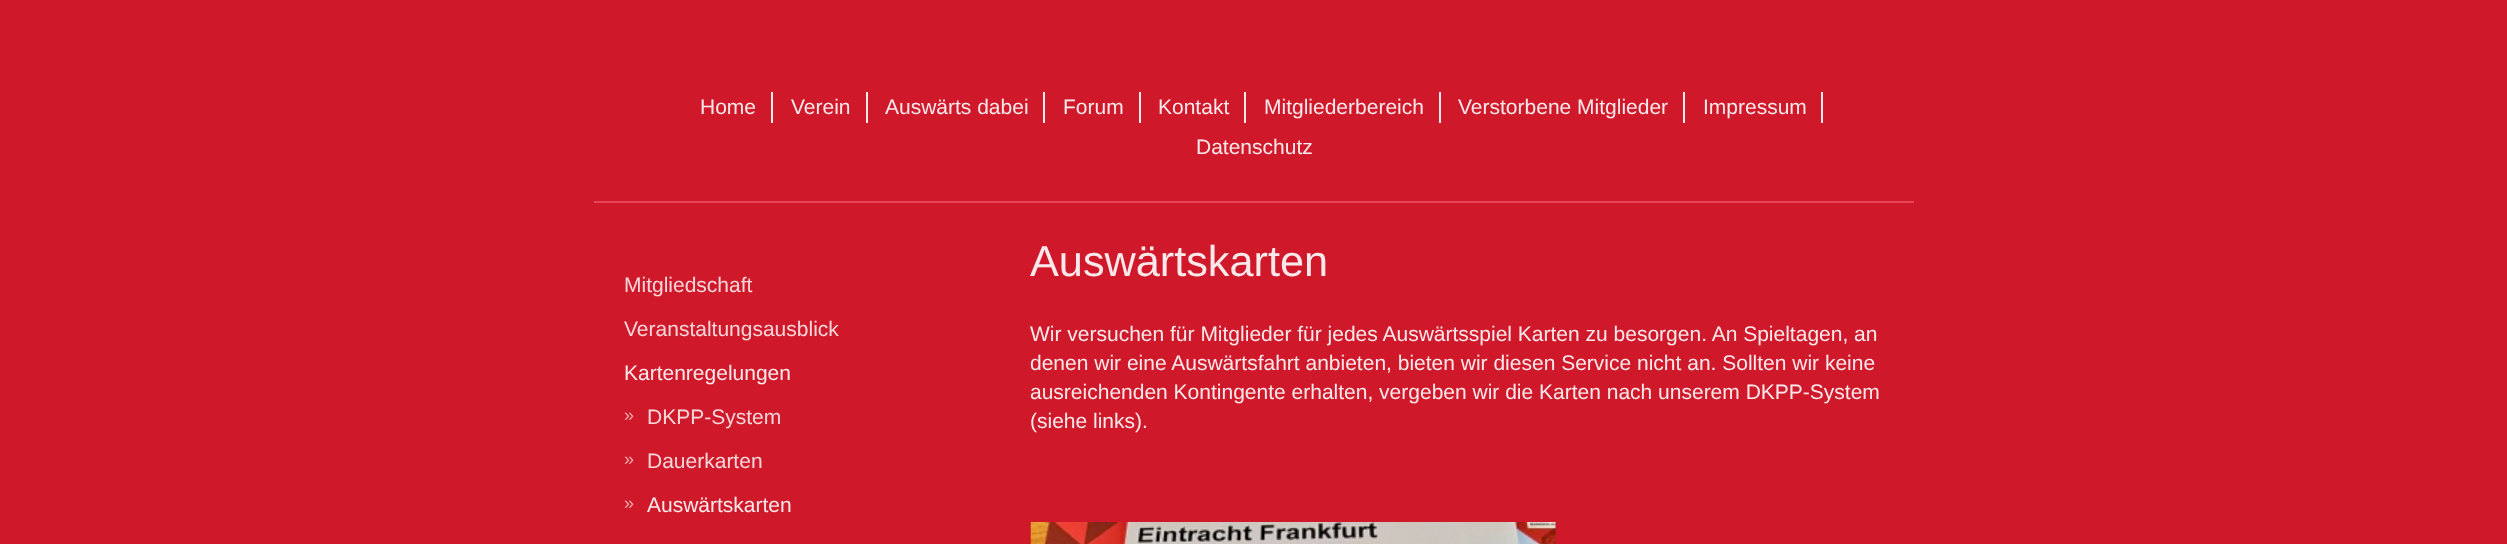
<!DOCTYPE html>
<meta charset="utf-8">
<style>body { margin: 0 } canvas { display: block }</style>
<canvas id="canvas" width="2507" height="544"></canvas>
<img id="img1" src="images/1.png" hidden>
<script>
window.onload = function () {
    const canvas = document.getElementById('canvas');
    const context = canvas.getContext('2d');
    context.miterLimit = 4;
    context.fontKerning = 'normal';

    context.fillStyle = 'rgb(207, 25, 42)';
    context.fillRect(0, 0, 2507, 544);
    context.fillStyle = 'rgb(231, 70, 85)';
    context.fillRect(594, 201, 1320, 2);
    context.fillStyle = 'rgb(250, 232, 234)';
    context.fillRect(771, 92, 2, 31);
    context.fillRect(866, 92, 2, 31);
    context.fillRect(1043, 92, 2, 31);
    context.fillRect(1139, 92, 2, 31);
    context.fillRect(1244, 92, 2, 31);
    context.fillRect(1439, 92, 2, 31);
    context.fillRect(1683, 92, 2, 31);
    context.fillRect(1821, 92, 2, 31);
    context.drawImage(document.getElementById('img1'), 1030, 522, 526, 22);
    context.font = '21px Liberation Sans';
    context.fillText('Home', 700, 114);
    context.fillText('Verein', 791, 114);
    context.fillText('Auswärts dabei', 885, 114);
    context.fillText('Forum', 1063, 114);
    context.fillText('Kontakt', 1158, 114);
    context.fillText('Mitgliederbereich', 1264, 114);
    context.fillText('Verstorbene Mitglieder', 1458, 114);
    context.fillText('Impressum', 1703, 114);
    context.fillText('Datenschutz', 1196, 154);
    context.fillStyle = 'rgb(248, 214, 217)';
    context.fillText('Mitgliedschaft', 624, 292);
    context.fillText('Veranstaltungsausblick', 624, 336);
    context.fillStyle = 'rgb(250, 232, 234)';
    context.fillText('Kartenregelungen', 624, 380);
    context.font = '18px Liberation Sans';
    context.fillStyle = 'rgb(243, 173, 179)';
    context.fillText('»', 624, 421);
    context.font = '21px Liberation Sans';
    context.fillStyle = 'rgb(248, 214, 217)';
    context.fillText('DKPP-System', 647, 424);
    context.font = '18px Liberation Sans';
    context.fillStyle = 'rgb(243, 173, 179)';
    context.fillText('»', 624, 465);
    context.font = '21px Liberation Sans';
    context.fillStyle = 'rgb(248, 214, 217)';
    context.fillText('Dauerkarten', 647, 468);
    context.font = '18px Liberation Sans';
    context.fillStyle = 'rgb(243, 173, 179)';
    context.fillText('»', 624, 509);
    context.font = '21px Liberation Sans';
    context.fillStyle = 'rgb(250, 232, 234)';
    context.fillText('Auswärtskarten', 647, 512);
    context.font = '43.25px Liberation Sans';
    context.fillText('Auswärtskarten', 1030, 276);
    context.font = '21px Liberation Sans';
    context.fillText('Wir versuchen für Mitglieder für jedes Auswärtsspiel Karten zu besorgen. An Spieltagen, an', 1030, 341);
    context.fillText('denen wir eine Auswärtsfahrt anbieten, bieten wir diesen Service nicht an. Sollten wir keine', 1030, 370);
    context.fillText('ausreichenden Kontingente erhalten, vergeben wir die Karten nach unserem DKPP-System', 1030, 399);
    context.fillText('(siehe links).', 1030, 428);
};
</script>
